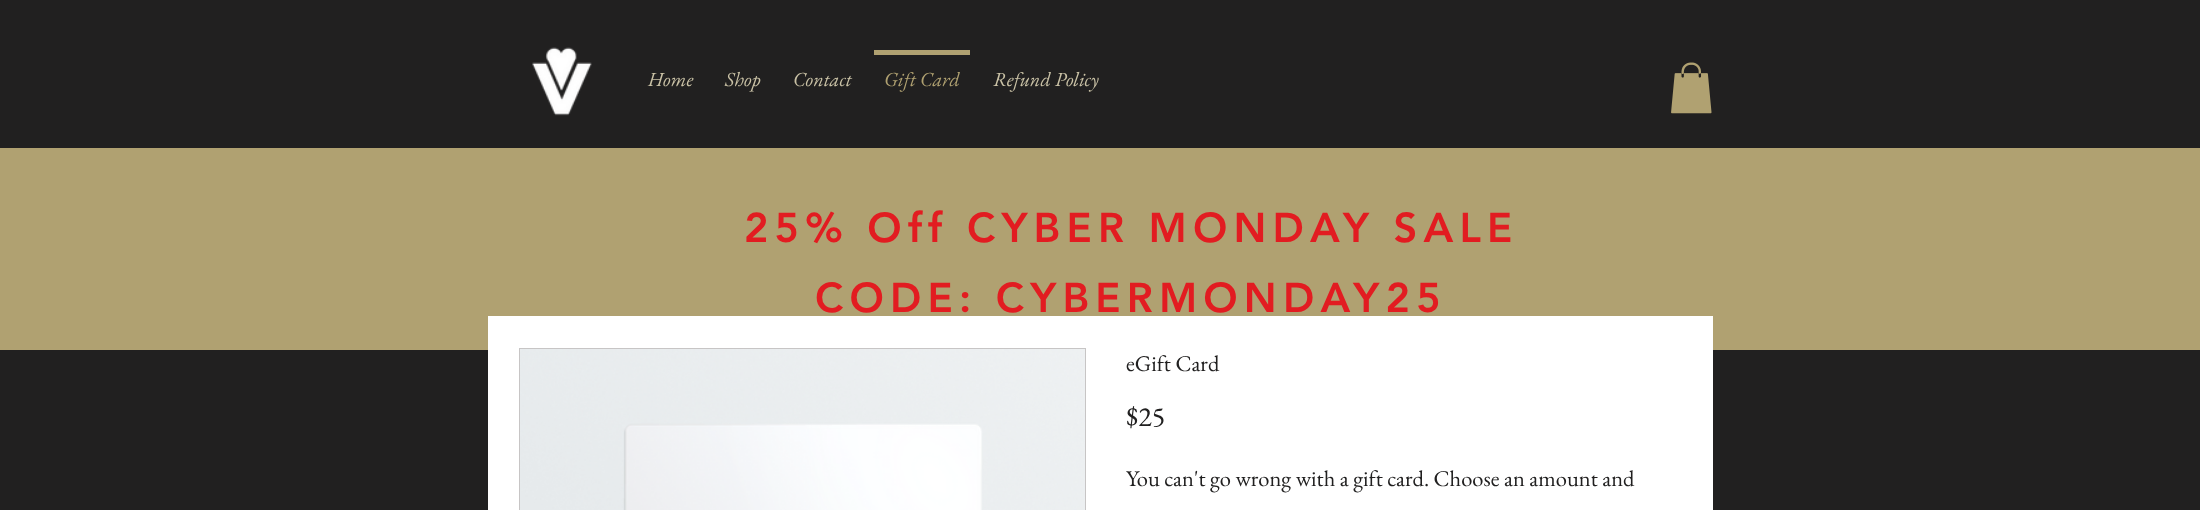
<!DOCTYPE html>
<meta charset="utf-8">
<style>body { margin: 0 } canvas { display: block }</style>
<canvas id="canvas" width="2200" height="510"></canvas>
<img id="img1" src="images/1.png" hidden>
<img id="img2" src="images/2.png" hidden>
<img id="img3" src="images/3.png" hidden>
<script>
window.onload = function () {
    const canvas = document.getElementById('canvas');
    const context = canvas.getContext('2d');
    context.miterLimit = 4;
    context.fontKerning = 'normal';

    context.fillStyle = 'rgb(33, 32, 32)';
    context.fillRect(0, 0, 2200, 510);
    context.drawImage(document.getElementById('img1'), 532, 47, 60, 69);
    context.fillStyle = 'rgb(176, 161, 113)';
    context.fillRect(874, 50, 96, 5);
    context.drawImage(document.getElementById('img2'), 1671, 62, 41, 52);
    context.fillRect(0, 148, 2200, 202);
    context.fillStyle = 'rgb(255, 255, 255)';
    context.fillRect(488, 316, 1225, 194);
    context.strokeStyle = 'rgb(199, 197, 197)';
    context.strokeRect(519.5, 348.5, 566, 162);
    context.drawImage(document.getElementById('img3'), 520, 349, 565, 161);
    context.font = 'italic 20px EB Garamond';
    context.fillStyle = 'rgb(202, 194, 166)';
    context.fillText('Home', 648, 86);
    context.fillText('Shop', 725, 86);
    context.fillText('Contact', 793, 86);
    context.fillStyle = 'rgb(176, 161, 113)';
    context.fillText('Gift Card', 884, 86);
    context.fillStyle = 'rgb(202, 194, 166)';
    context.fillText('Refund Policy', 993, 86);
    context.letterSpacing = '6.2px';
    context.font = '900 41.25px "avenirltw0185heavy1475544"';
    context.fillStyle = 'rgb(226, 28, 33)';
    context.fillText('25% Off CYBER MONDAY SALE', 744, 242);
    context.fillText('CODE: CYBERMONDAY25', 815, 312);
    context.letterSpacing = '0px';
    context.font = '22.5px EB Garamond';
    context.fillStyle = 'rgb(33, 32, 32)';
    context.fillText('eGift Card', 1126, 371);
    context.font = '28px EB Garamond';
    context.fillText('$25', 1126, 426);
    context.font = '22.5px EB Garamond';
    context.fillText('You can\'t go wrong with a gift card. Choose an amount and', 1126, 486);
};
</script>
